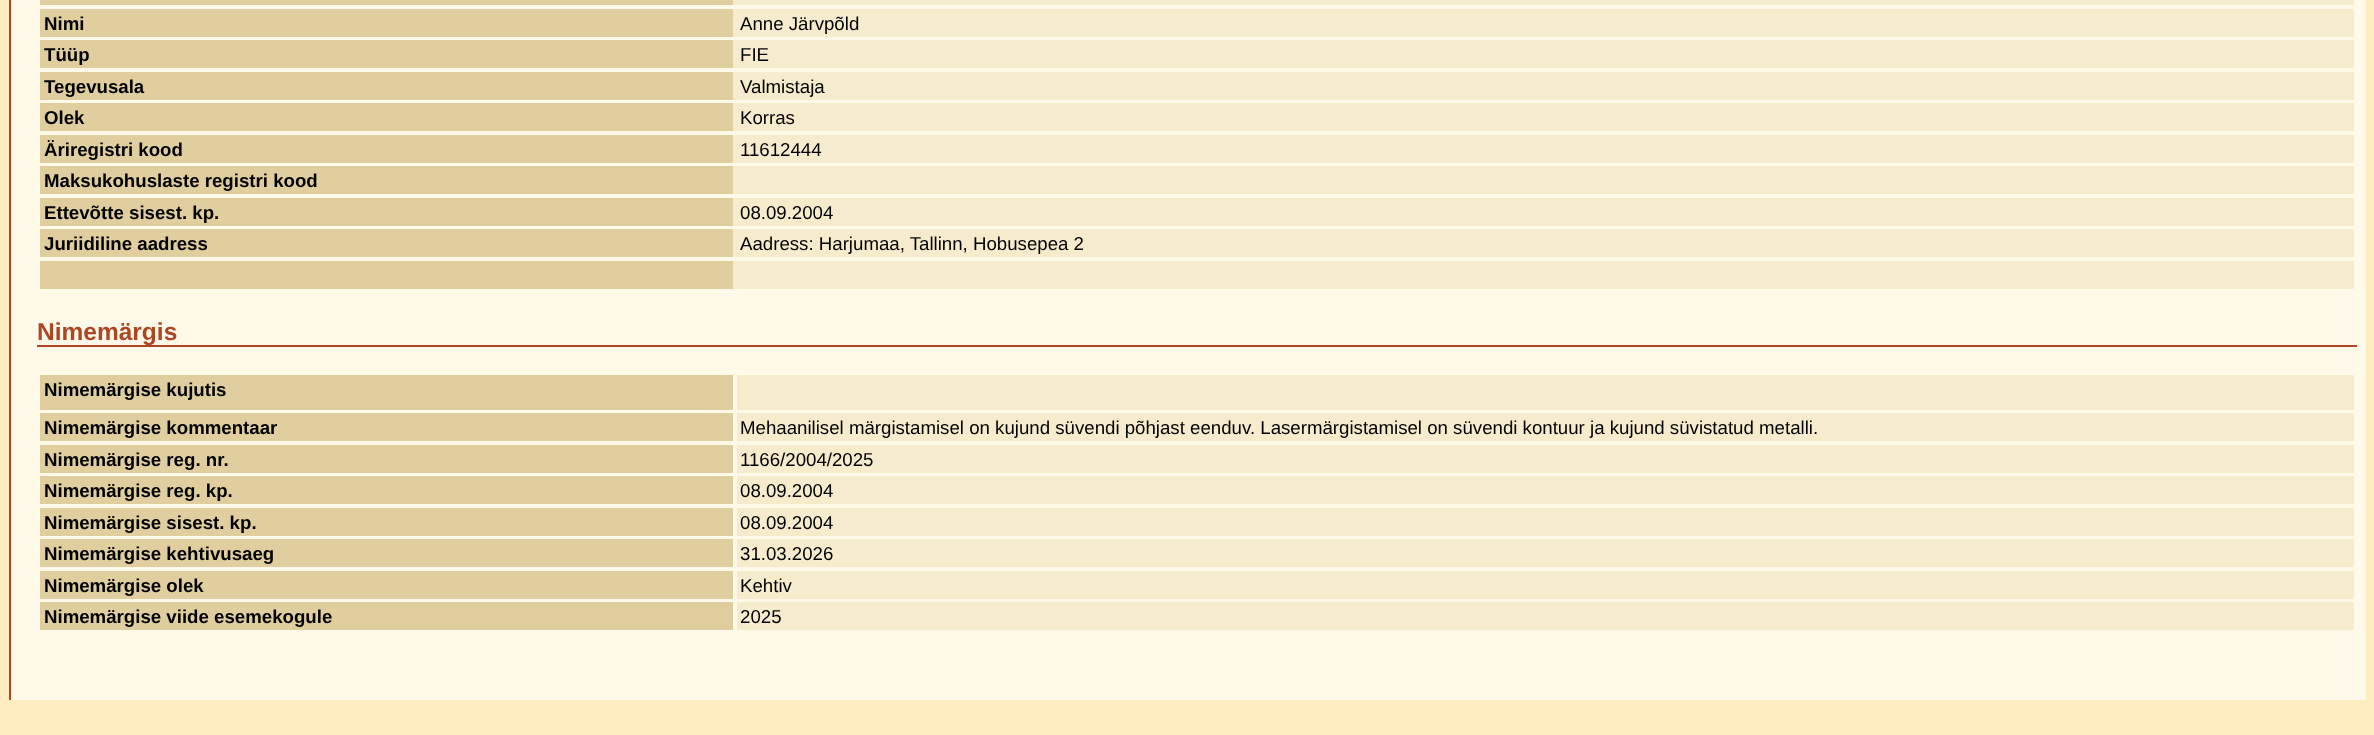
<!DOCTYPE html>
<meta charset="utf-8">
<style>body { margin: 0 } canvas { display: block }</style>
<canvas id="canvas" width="2374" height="735"></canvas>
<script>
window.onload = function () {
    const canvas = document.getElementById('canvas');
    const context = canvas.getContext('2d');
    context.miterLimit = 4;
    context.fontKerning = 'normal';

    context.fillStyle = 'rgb(255, 237, 193)';
    context.fillRect(0, 0, 2374, 735);
    context.fillStyle = 'rgb(255, 249, 233)';
    context.fillRect(11, 0, 2355, 700);
    context.fillStyle = 'rgb(173, 70, 35)';
    context.fillRect(9, 0, 2, 700);
    context.fillStyle = 'rgb(246, 235, 205)';
    context.fillRect(733, 0, 1621, 5);
    context.fillStyle = 'rgb(224, 206, 159)';
    context.fillRect(40, 0, 693, 5);
    context.fillStyle = 'rgb(246, 235, 205)';
    context.fillRect(733, 9, 1621, 28);
    context.fillStyle = 'rgb(224, 206, 159)';
    context.fillRect(40, 9, 693, 28);
    context.fillStyle = 'rgb(246, 235, 205)';
    context.fillRect(733, 40, 1621, 28);
    context.fillStyle = 'rgb(224, 206, 159)';
    context.fillRect(40, 40, 693, 28);
    context.fillStyle = 'rgb(246, 235, 205)';
    context.fillRect(733, 72, 1621, 28);
    context.fillStyle = 'rgb(224, 206, 159)';
    context.fillRect(40, 72, 693, 28);
    context.fillStyle = 'rgb(246, 235, 205)';
    context.fillRect(733, 103, 1621, 28);
    context.fillStyle = 'rgb(224, 206, 159)';
    context.fillRect(40, 103, 693, 28);
    context.fillStyle = 'rgb(246, 235, 205)';
    context.fillRect(733, 135, 1621, 28);
    context.fillStyle = 'rgb(224, 206, 159)';
    context.fillRect(40, 135, 693, 28);
    context.fillStyle = 'rgb(246, 235, 205)';
    context.fillRect(733, 166, 1621, 28);
    context.fillStyle = 'rgb(224, 206, 159)';
    context.fillRect(40, 166, 693, 28);
    context.fillStyle = 'rgb(246, 235, 205)';
    context.fillRect(733, 198, 1621, 28);
    context.fillStyle = 'rgb(224, 206, 159)';
    context.fillRect(40, 198, 693, 28);
    context.fillStyle = 'rgb(246, 235, 205)';
    context.fillRect(733, 229, 1621, 28);
    context.fillStyle = 'rgb(224, 206, 159)';
    context.fillRect(40, 229, 693, 28);
    context.fillStyle = 'rgb(246, 235, 205)';
    context.fillRect(733, 261, 1621, 28);
    context.fillStyle = 'rgb(224, 206, 159)';
    context.fillRect(40, 261, 693, 28);
    context.fillStyle = 'rgb(173, 70, 35)';
    context.fillRect(37, 345, 2320, 2);
    context.fillStyle = 'rgb(224, 206, 159)';
    context.fillRect(40, 375, 693, 35);
    context.fillStyle = 'rgb(246, 235, 205)';
    context.fillRect(737, 375, 1617, 35);
    context.fillStyle = 'rgb(224, 206, 159)';
    context.fillRect(40, 413, 693, 28);
    context.fillStyle = 'rgb(246, 235, 205)';
    context.fillRect(737, 413, 1617, 28);
    context.fillStyle = 'rgb(224, 206, 159)';
    context.fillRect(40, 445, 693, 28);
    context.fillStyle = 'rgb(246, 235, 205)';
    context.fillRect(737, 445, 1617, 28);
    context.fillStyle = 'rgb(224, 206, 159)';
    context.fillRect(40, 476, 693, 28);
    context.fillStyle = 'rgb(246, 235, 205)';
    context.fillRect(737, 476, 1617, 28);
    context.fillStyle = 'rgb(224, 206, 159)';
    context.fillRect(40, 508, 693, 28);
    context.fillStyle = 'rgb(246, 235, 205)';
    context.fillRect(737, 508, 1617, 28);
    context.fillStyle = 'rgb(224, 206, 159)';
    context.fillRect(40, 539, 693, 28);
    context.fillStyle = 'rgb(246, 235, 205)';
    context.fillRect(737, 539, 1617, 28);
    context.fillStyle = 'rgb(224, 206, 159)';
    context.fillRect(40, 571, 693, 28);
    context.fillStyle = 'rgb(246, 235, 205)';
    context.fillRect(737, 571, 1617, 28);
    context.fillStyle = 'rgb(224, 206, 159)';
    context.fillRect(40, 602, 693, 28);
    context.fillStyle = 'rgb(246, 235, 205)';
    context.fillRect(737, 602, 1617, 28);
    context.font = 'bold 18.67px Liberation Sans';
    context.fillStyle = 'rgb(0, 0, 0)';
    context.fillText('Nimi', 44, 30);
    context.font = '18.67px Liberation Sans';
    context.fillText('Anne Järvpõld', 740, 30);
    context.font = 'bold 18.67px Liberation Sans';
    context.fillText('Tüüp', 44, 61);
    context.font = '18.67px Liberation Sans';
    context.fillText('FIE', 740, 61);
    context.font = 'bold 18.67px Liberation Sans';
    context.fillText('Tegevusala', 44, 93);
    context.font = '18.67px Liberation Sans';
    context.fillText('Valmistaja', 740, 93);
    context.font = 'bold 18.67px Liberation Sans';
    context.fillText('Olek', 44, 124);
    context.font = '18.67px Liberation Sans';
    context.fillText('Korras', 740, 124);
    context.font = 'bold 18.67px Liberation Sans';
    context.fillText('Äriregistri kood', 44, 156);
    context.font = '18.67px Liberation Sans';
    context.fillText('11612444', 740, 156);
    context.font = 'bold 18.67px Liberation Sans';
    context.fillText('Maksukohuslaste registri kood', 44, 187);
    context.fillText('Ettevõtte sisest. kp.', 44, 219);
    context.font = '18.67px Liberation Sans';
    context.fillText('08.09.2004', 740, 219);
    context.font = 'bold 18.67px Liberation Sans';
    context.fillText('Juriidiline aadress', 44, 250);
    context.font = '18.67px Liberation Sans';
    context.fillText('Aadress: Harjumaa, Tallinn, Hobusepea 2', 740, 250);
    context.font = 'bold 24.5px Liberation Sans';
    context.fillStyle = 'rgb(173, 70, 35)';
    context.fillText('Nimemärgis', 37, 340);
    context.font = 'bold 18.67px Liberation Sans';
    context.fillStyle = 'rgb(0, 0, 0)';
    context.fillText('Nimemärgise kujutis', 44, 396);
    context.fillText('Nimemärgise kommentaar', 44, 434);
    context.font = '18.67px Liberation Sans';
    context.fillText('Mehaanilisel märgistamisel on kujund süvendi põhjast eenduv. Lasermärgistamisel on süvendi kontuur ja kujund süvistatud metalli.', 740, 434);
    context.font = 'bold 18.67px Liberation Sans';
    context.fillText('Nimemärgise reg. nr.', 44, 466);
    context.font = '18.67px Liberation Sans';
    context.fillText('1166/2004/2025', 740, 466);
    context.font = 'bold 18.67px Liberation Sans';
    context.fillText('Nimemärgise reg. kp.', 44, 497);
    context.font = '18.67px Liberation Sans';
    context.fillText('08.09.2004', 740, 497);
    context.font = 'bold 18.67px Liberation Sans';
    context.fillText('Nimemärgise sisest. kp.', 44, 529);
    context.font = '18.67px Liberation Sans';
    context.fillText('08.09.2004', 740, 529);
    context.font = 'bold 18.67px Liberation Sans';
    context.fillText('Nimemärgise kehtivusaeg', 44, 560);
    context.font = '18.67px Liberation Sans';
    context.fillText('31.03.2026', 740, 560);
    context.font = 'bold 18.67px Liberation Sans';
    context.fillText('Nimemärgise olek', 44, 592);
    context.font = '18.67px Liberation Sans';
    context.fillText('Kehtiv', 740, 592);
    context.font = 'bold 18.67px Liberation Sans';
    context.fillText('Nimemärgise viide esemekogule', 44, 623);
    context.font = '18.67px Liberation Sans';
    context.fillText('2025', 740, 623);
};
</script>
